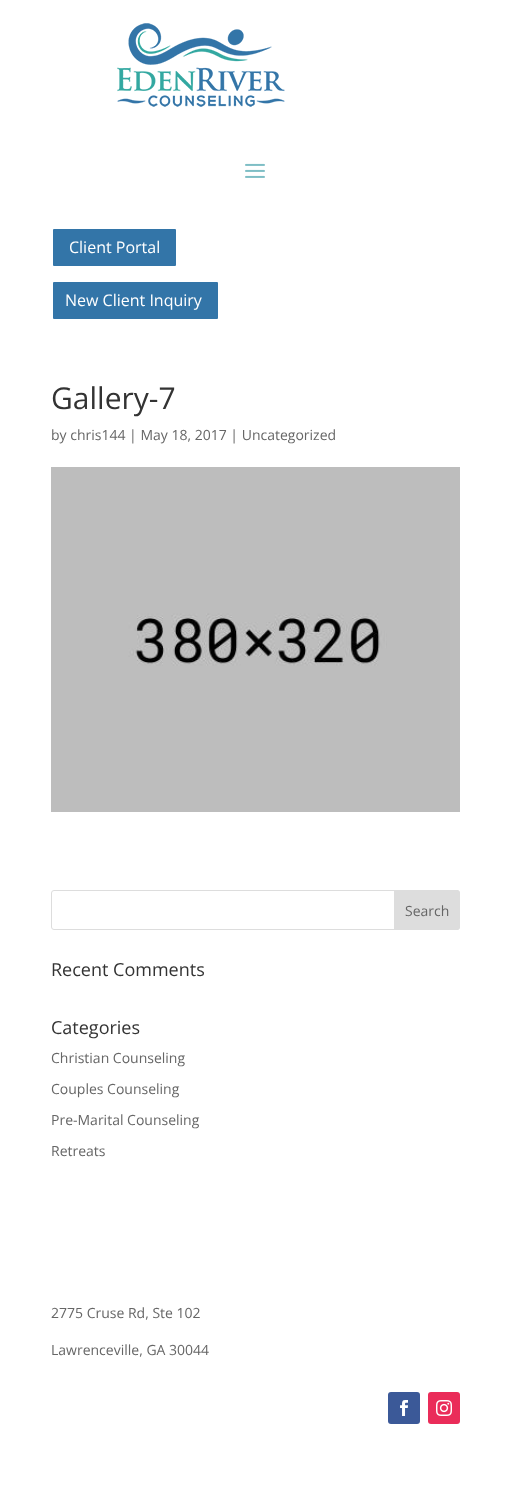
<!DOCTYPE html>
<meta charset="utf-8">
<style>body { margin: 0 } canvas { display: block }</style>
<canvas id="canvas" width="511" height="1497"></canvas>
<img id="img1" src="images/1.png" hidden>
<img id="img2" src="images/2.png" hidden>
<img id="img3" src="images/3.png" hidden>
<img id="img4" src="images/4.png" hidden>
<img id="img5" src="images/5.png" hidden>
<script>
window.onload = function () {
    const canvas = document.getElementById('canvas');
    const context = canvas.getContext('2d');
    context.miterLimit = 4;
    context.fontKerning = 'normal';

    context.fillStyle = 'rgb(255, 255, 255)';
    context.fillRect(0, 0, 511, 1497);
    context.drawImage(document.getElementById('img1'), 117, 23, 168, 84);
    context.drawImage(document.getElementById('img2'), 245, 163, 20, 15);
    context.fillStyle = 'rgb(51, 117, 168)';
    context.beginPath();
    context.roundRect(52, 228, 125, 39, 2);
    context.fill();
    context.strokeStyle = 'rgb(255, 255, 255)';
    context.lineWidth = 2;
    context.stroke();
    context.beginPath();
    context.roundRect(52, 281, 167, 39, 2);
    context.fill();
    context.stroke();
    context.drawImage(document.getElementById('img3'), 51, 467, 409, 345);
    context.beginPath();
    context.roundRect(51.5, 890.5, 408, 39, 2.5);
    context.strokeStyle = 'rgb(221, 221, 221)';
    context.lineWidth = 1;
    context.stroke();
    context.fillStyle = 'rgb(221, 221, 221)';
    context.beginPath();
    context.roundRect(394.5, 890.5, 65, 39, [0, 2.5, 2.5, 0]);
    context.fill();
    context.stroke();
    context.fillStyle = 'rgb(59, 89, 152)';
    context.beginPath();
    context.roundRect(388, 1392, 32, 32, 3);
    context.fill();
    context.drawImage(document.getElementById('img4'), 400, 1400, 8, 16);
    context.fillStyle = 'rgb(234, 44, 89)';
    context.beginPath();
    context.roundRect(428, 1392, 32, 32, 3);
    context.fill();
    context.drawImage(document.getElementById('img5'), 436, 1400, 16, 16);
    context.font = '16px Open Sans';
    context.fillStyle = 'rgb(255, 255, 255)';
    context.fillText('Client Portal', 69, 253);
    context.fillText('New Client Inquiry', 65, 306);
    context.font = '30px Open Sans';
    context.fillStyle = 'rgb(51, 51, 51)';
    context.fillText('Gallery-7', 51, 409);
    context.font = '14px Open Sans';
    context.fillStyle = 'rgb(102, 102, 102)';
    context.fillText('by chris144 | May 18, 2017 | Uncategorized', 51, 440);
    context.fillText('Search', 405, 916);
    context.font = '18px Open Sans';
    context.fillStyle = 'rgb(51, 51, 51)';
    context.fillText('Recent Comments', 51, 976);
    context.fillText('Categories', 51, 1034);
    context.font = '14px Open Sans';
    context.fillStyle = 'rgb(102, 102, 102)';
    context.fillText('Christian Counseling', 51, 1063);
    context.fillText('Couples Counseling', 51, 1094);
    context.fillText('Pre-Marital Counseling', 51, 1125);
    context.fillText('Retreats', 51, 1156);
    context.fillText('2775 Cruse Rd, Ste 102', 51, 1318);
    context.fillText('Lawrenceville, GA 30044', 51, 1355);
};
</script>
